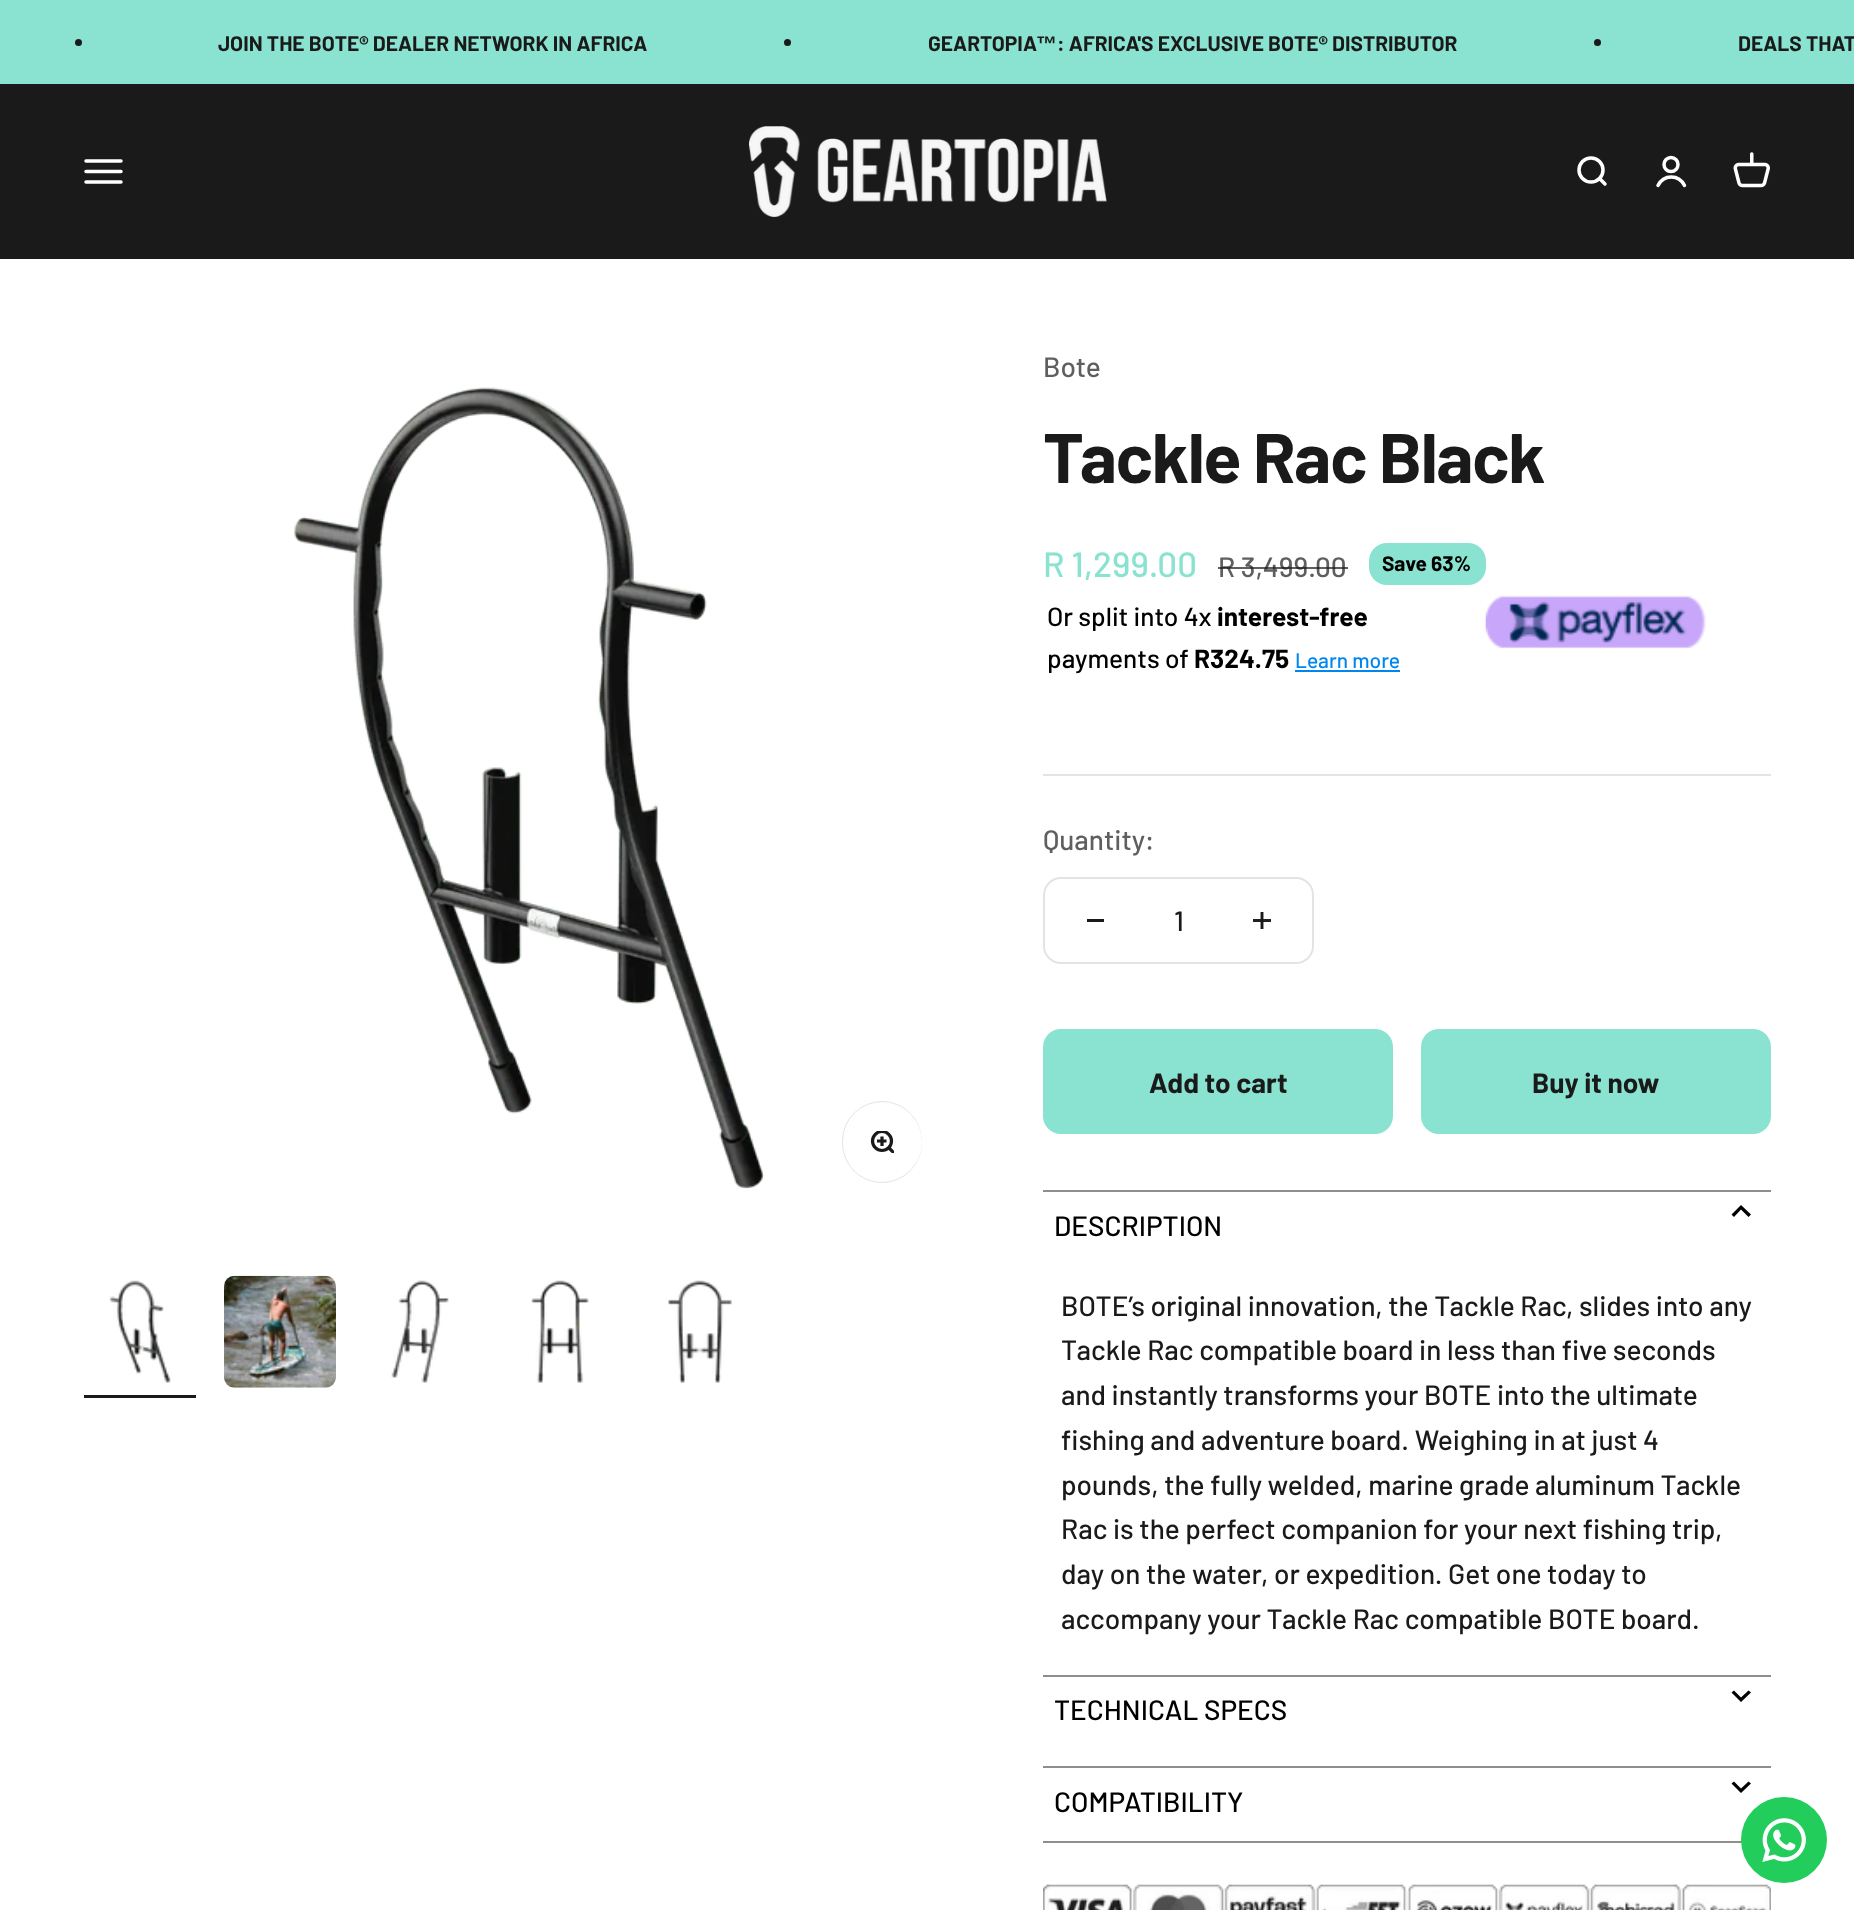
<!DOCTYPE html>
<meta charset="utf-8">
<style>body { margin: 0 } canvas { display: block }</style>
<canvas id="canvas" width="1854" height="1910"></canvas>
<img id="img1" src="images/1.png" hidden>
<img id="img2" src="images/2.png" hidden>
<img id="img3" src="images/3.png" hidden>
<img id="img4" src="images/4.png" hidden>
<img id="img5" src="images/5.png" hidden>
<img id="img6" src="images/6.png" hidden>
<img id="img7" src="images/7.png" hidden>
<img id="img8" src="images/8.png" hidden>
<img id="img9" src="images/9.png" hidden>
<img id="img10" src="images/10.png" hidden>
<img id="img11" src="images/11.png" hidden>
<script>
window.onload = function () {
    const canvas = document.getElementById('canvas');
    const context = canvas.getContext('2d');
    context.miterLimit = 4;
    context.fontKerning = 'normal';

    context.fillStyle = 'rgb(255, 255, 255)';
    context.fillRect(0, 0, 1854, 1910);
    context.fillStyle = 'rgb(138, 226, 209)';
    context.fillRect(0, 0, 1854, 84);
    context.fillStyle = 'rgb(26, 26, 26)';
    context.beginPath();
    context.arc(78.5, 42.5, 3.5, 0, 2 * Math.PI);
    context.fill();
    context.beginPath();
    context.arc(787.5, 42.5, 3.5, 0, 2 * Math.PI);
    context.fill();
    context.beginPath();
    context.arc(1597.5, 42.5, 3.5, 0, 2 * Math.PI);
    context.fill();
    context.fillRect(0, 84, 1854, 175);
    context.beginPath();
    context.moveTo(86, 161);
    context.lineTo(121, 161);
    context.moveTo(86, 171.5);
    context.lineTo(121, 171.5);
    context.moveTo(86, 182);
    context.lineTo(121, 182);
    context.strokeStyle = 'rgb(255, 255, 255)';
    context.lineWidth = 3.5;
    context.lineCap = 'round';
    context.stroke();
    context.drawImage(document.getElementById('img1'), 749, 126, 358, 91);
    context.beginPath();
    context.arc(1591, 170, 12, 0, 2 * Math.PI);
    context.stroke();
    context.beginPath();
    context.moveTo(1599.5, 178.5);
    context.lineTo(1605, 184);
    context.lineJoin = 'round';
    context.stroke();
    context.beginPath();
    context.arc(1671, 164.5, 7, 0, 2 * Math.PI);
    context.stroke();
    context.beginPath();
    context.moveTo(1658, 185.5);
    context.bezierCurveTo(1663.5, 174, 1679, 174, 1684.5, 185.5);
    context.lineJoin = 'miter';
    context.stroke();
    context.drawImage(document.getElementById('img2'), 1733, 152, 37, 36);
    context.drawImage(document.getElementById('img3'), 294, 387, 471, 802);
    context.beginPath();
    context.roundRect(842.5, 1101.5, 79, 81, 39.5);
    context.strokeStyle = 'rgb(228, 228, 228)';
    context.lineWidth = 1;
    context.stroke();
    context.fillStyle = 'rgb(255, 255, 255)';
    context.beginPath();
    context.arc(883, 1142, 39, 0, 2 * Math.PI);
    context.fill();
    context.save();
    context.beginPath();
    context.rect(870, 1131, 24, 22);
    context.clip();
    context.beginPath();
    context.arc(882, 1141, 9.5, 0, 2 * Math.PI);
    context.strokeStyle = 'rgb(26, 26, 26)';
    context.lineWidth = 3.2;
    context.stroke();
    context.beginPath();
    context.moveTo(889, 1148);
    context.lineTo(893, 1152);
    context.lineJoin = 'round';
    context.stroke();
    context.restore();
    context.beginPath();
    context.moveTo(882, 1136.5);
    context.lineTo(882, 1146);
    context.moveTo(877, 1141);
    context.lineTo(886.5, 1141);
    context.strokeStyle = 'rgb(26, 26, 26)';
    context.lineWidth = 3.2;
    context.lineCap = 'butt';
    context.stroke();
    context.drawImage(document.getElementById('img4'), 109, 1280, 62, 103);
    context.fillStyle = 'rgb(26, 26, 26)';
    context.fillRect(84, 1395, 112, 3);
    context.drawImage(document.getElementById('img5'), 224, 1275, 112, 113);
    context.drawImage(document.getElementById('img6'), 391, 1280, 58, 103);
    context.drawImage(document.getElementById('img7'), 531, 1280, 58, 103);
    context.drawImage(document.getElementById('img8'), 668, 1280, 64, 103);
    context.fillStyle = 'rgb(138, 226, 209)';
    context.beginPath();
    context.roundRect(1369, 543, 117, 42, 18);
    context.fill();
    context.fillStyle = 'rgb(0, 134, 239)';
    context.fillRect(1295, 670, 105, 2);
    context.drawImage(document.getElementById('img9'), 1485, 595, 221, 54);
    context.fillStyle = 'rgb(228, 228, 228)';
    context.fillRect(1043, 774, 728, 2);
    context.beginPath();
    context.roundRect(1044, 878, 269, 85, 17);
    context.strokeStyle = 'rgb(228, 228, 228)';
    context.lineWidth = 2;
    context.stroke();
    context.fillStyle = 'rgb(26, 26, 26)';
    context.fillRect(1087, 919, 17, 3);
    context.beginPath();
    context.moveTo(1262, 912);
    context.lineTo(1262, 929);
    context.strokeStyle = 'rgb(26, 26, 26)';
    context.lineWidth = 2.9;
    context.stroke();
    context.fillStyle = 'rgba(26, 26, 26, 0.97)';
    context.fillRect(1253, 919, 18, 3);
    context.fillStyle = 'rgb(138, 226, 209)';
    context.beginPath();
    context.roundRect(1043, 1029, 350, 105, 18);
    context.fill();
    context.beginPath();
    context.roundRect(1421, 1029, 350, 105, 18);
    context.fill();
    context.fillStyle = 'rgb(142, 142, 142)';
    context.fillRect(1043, 1841, 699, 2);
    context.fillRect(1043, 1190, 728, 2);
    context.fillStyle = 'rgb(0, 0, 0)';
    context.beginPath();
    context.moveTo(1734, 1217);
    context.lineTo(1741, 1209.5);
    context.lineTo(1748.5, 1217);
    context.lineTo(1751, 1214.5);
    context.lineTo(1741, 1205);
    context.lineTo(1731.5, 1214.5);
    context.closePath();
    context.fill();
    context.fillStyle = 'rgb(142, 142, 142)';
    context.fillRect(1043, 1675, 728, 2);
    context.fillStyle = 'rgb(0, 0, 0)';
    context.beginPath();
    context.moveTo(1734, 1690.5);
    context.lineTo(1741, 1697.5);
    context.lineTo(1748.5, 1690.5);
    context.lineTo(1751, 1692.5);
    context.lineTo(1741, 1702);
    context.lineTo(1731.5, 1692.5);
    context.closePath();
    context.fill();
    context.fillStyle = 'rgb(142, 142, 142)';
    context.fillRect(1043, 1766, 728, 2);
    context.fillStyle = 'rgb(0, 0, 0)';
    context.beginPath();
    context.moveTo(1734, 1781.5);
    context.lineTo(1741, 1788.5);
    context.lineTo(1748.5, 1781.5);
    context.lineTo(1751, 1783.5);
    context.lineTo(1741, 1793);
    context.lineTo(1731.5, 1783.5);
    context.closePath();
    context.fill();
    context.drawImage(document.getElementById('img10'), 1043, 1884, 728, 26);
    context.fillStyle = 'rgb(34, 205, 91)';
    context.beginPath();
    context.arc(1784, 1840, 43, 0, 2 * Math.PI);
    context.fill();
    context.drawImage(document.getElementById('img11'), 1762, 1818, 44, 44);
    context.font = 'bold 21px Barlow';
    context.fillStyle = 'rgb(26, 26, 26)';
    context.fillText('JOIN THE BOTE® DEALER NETWORK IN AFRICA', 218, 51);
    context.fillText('GEARTOPIA', 928, 51);
    context.font = 'bold 21px Liberation Sans';
    context.fillText('™', 1036, 51);
    context.font = 'bold 21px Barlow';
    context.fillText(': AFRICA\'S EXCLUSIVE BOTE® DISTRIBUTOR', 1057, 51);
    context.fillText('DEALS THAT', 1738, 51);
    context.font = '500 28px Barlow';
    context.fillStyle = 'rgb(95, 95, 95)';
    context.fillText('Bote', 1043, 377);
    context.letterSpacing = '-1.4px';
    context.font = 'bold 70px Barlow';
    context.fillStyle = 'rgb(26, 26, 26)';
    context.fillText('Tackle Rac Black', 1043, 483);
    context.letterSpacing = '0px';
    context.font = '500 35px Barlow';
    context.fillStyle = 'rgb(138, 226, 209)';
    context.fillText('R 1,299.00', 1043, 577);
    context.font = '500 28px Barlow';
    context.fillStyle = 'rgb(95, 95, 95)';
    context.fillText('R 3,499.00', 1218, 577);
    context.fillStyle = 'rgba(26, 26, 26, 0.7)';
    context.fillRect(1218, 567, 130, 2);
    context.font = 'bold 21px Barlow';
    context.fillStyle = 'rgb(0, 0, 0)';
    context.fillText('Save 63%', 1382, 571);
    context.font = '500 26.25px Barlow';
    context.fillText('Or split into 4x', 1047, 626);
    context.font = 'bold 26.25px Barlow';
    context.fillText('interest-free', 1217, 626);
    context.font = '500 26.25px Barlow';
    context.fillText('payments of', 1047, 668);
    context.font = 'bold 26.25px Barlow';
    context.fillText('R324.75', 1194, 668);
    context.font = '500 21px Barlow';
    context.fillStyle = 'rgb(0, 134, 239)';
    context.fillText('Learn more', 1295, 668);
    context.font = '500 28px Barlow';
    context.fillStyle = 'rgb(95, 95, 95)';
    context.fillText('Quantity:', 1043, 850);
    context.fillStyle = 'rgb(26, 26, 26)';
    context.fillText('1', 1174, 931);
    context.font = 'bold 28px Barlow';
    context.fillText('Add to cart', 1149, 1093);
    context.fillText('Buy it now', 1532, 1093);
    context.font = '500 28px Barlow';
    context.fillStyle = 'rgb(0, 0, 0)';
    context.fillText('DESCRIPTION', 1054, 1236);
    context.fillStyle = 'rgb(26, 26, 26)';
    context.fillText('BOTE’s original innovation, the Tackle Rac, slides into any', 1061, 1316);
    context.fillText('Tackle Rac compatible board in less than five seconds', 1061, 1360);
    context.fillText('and instantly transforms your BOTE into the ultimate', 1061, 1405);
    context.fillText('fishing and adventure board. Weighing in at just 4', 1061, 1450);
    context.fillText('pounds, the fully welded, marine grade aluminum Tackle', 1061, 1495);
    context.fillText('Rac is the perfect companion for your next fishing trip,', 1061, 1539);
    context.fillText('day on the water, or expedition. Get one today to', 1061, 1584);
    context.fillText('accompany your Tackle Rac compatible BOTE board.', 1061, 1629);
    context.fillStyle = 'rgb(0, 0, 0)';
    context.fillText('TECHNICAL SPECS', 1054, 1720);
    context.fillText('COMPATIBILITY', 1054, 1812);
};
</script>
